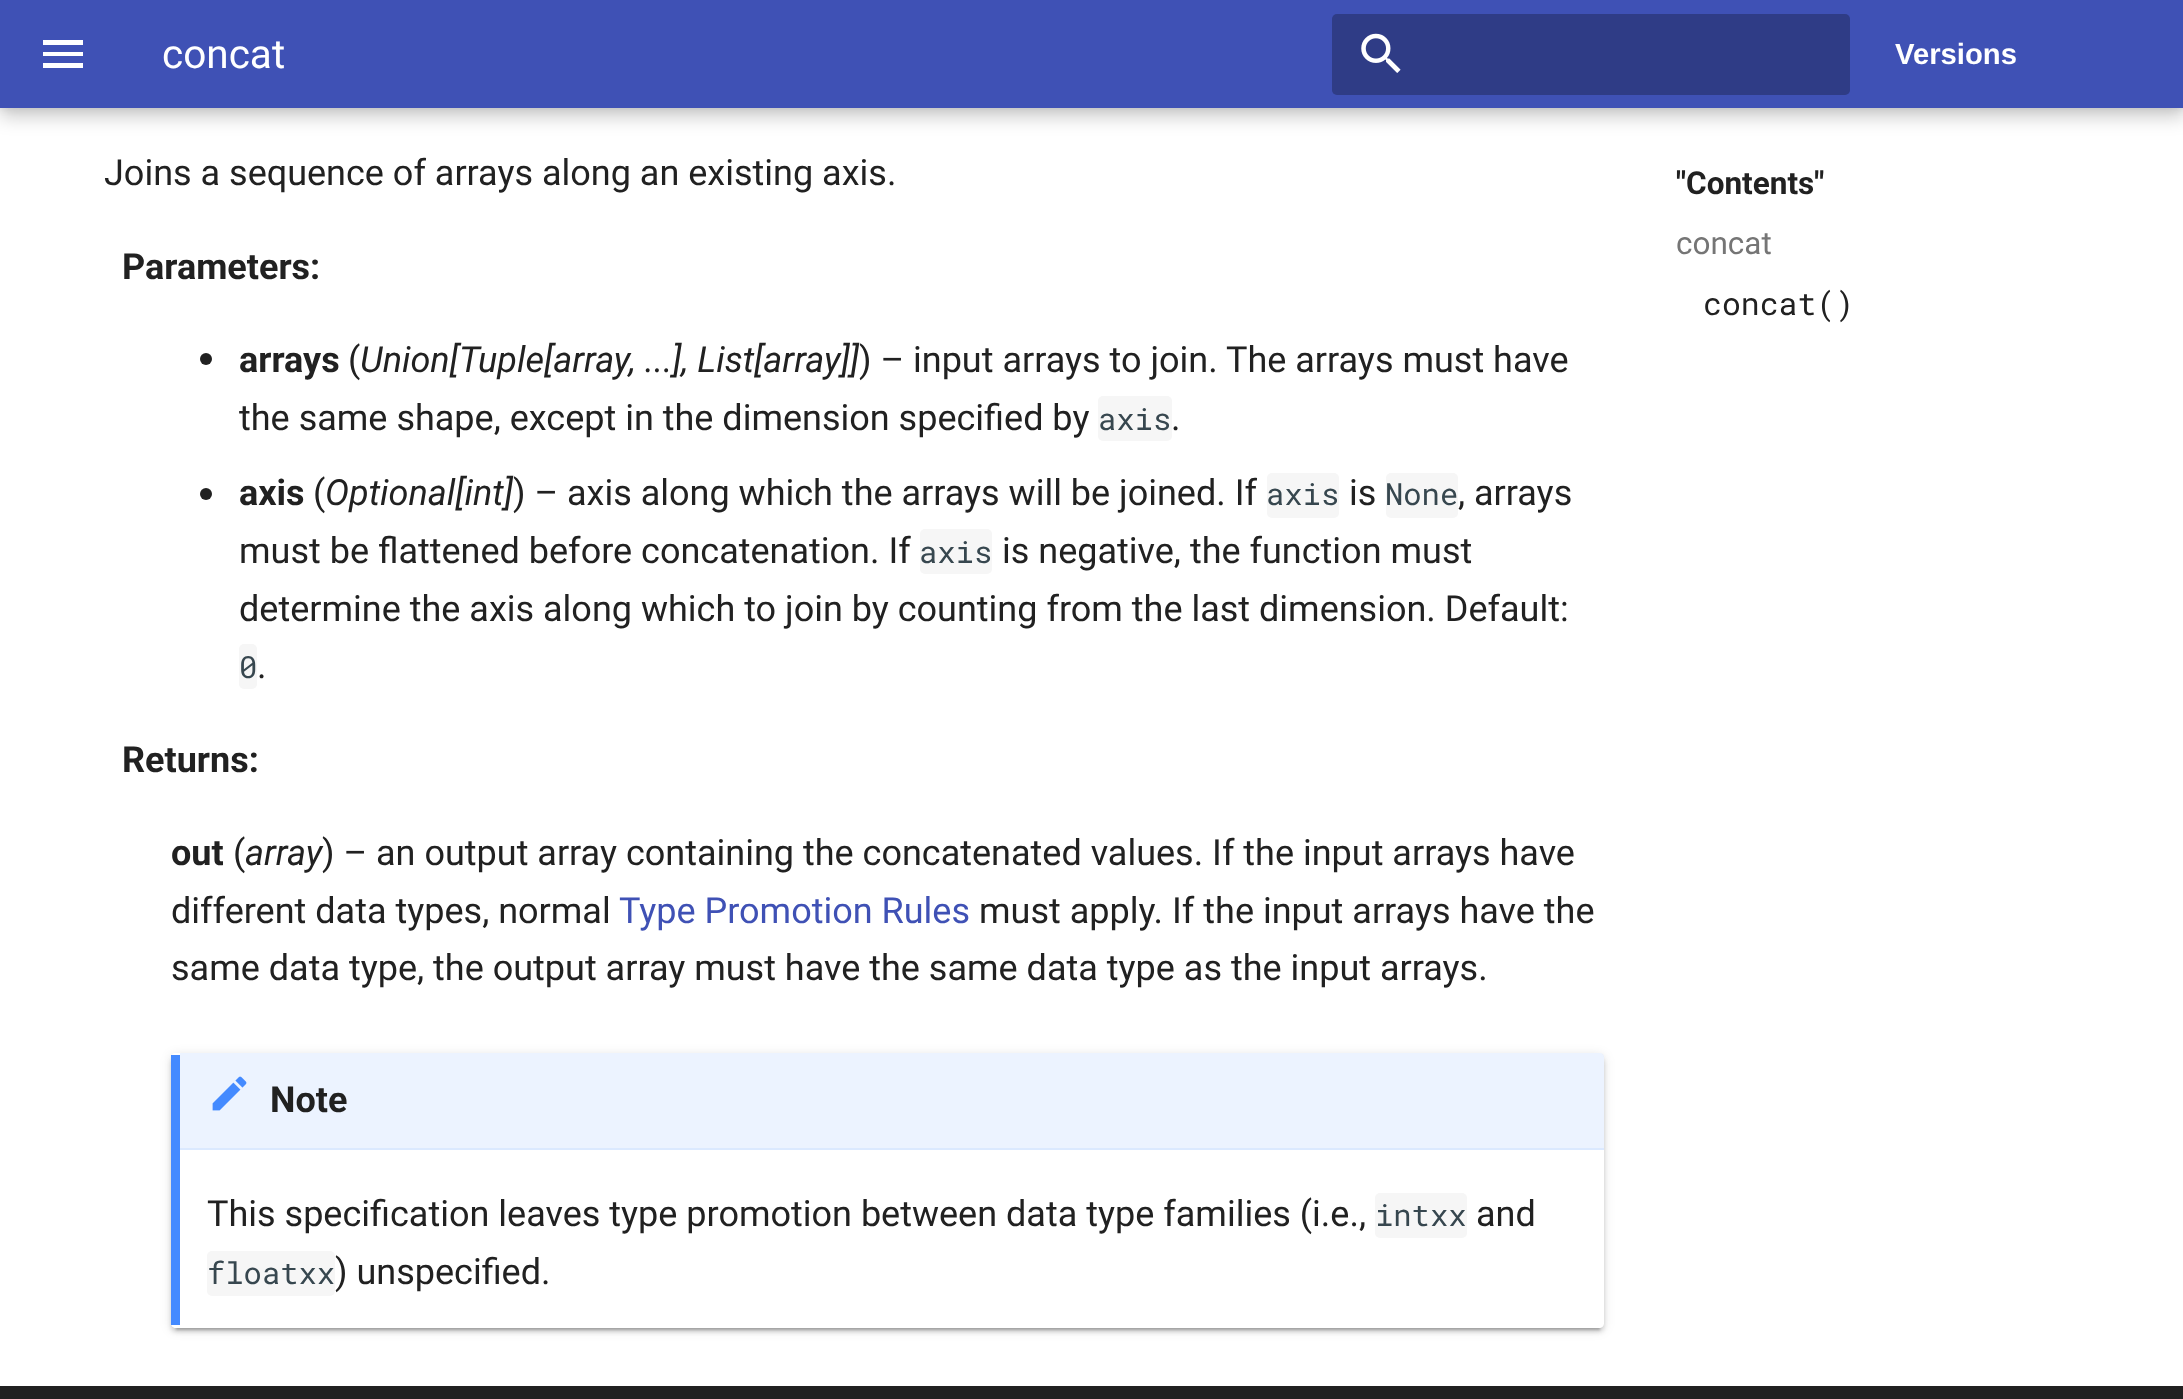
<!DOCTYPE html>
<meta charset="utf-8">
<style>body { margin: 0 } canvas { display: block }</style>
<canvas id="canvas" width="2183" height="1399"></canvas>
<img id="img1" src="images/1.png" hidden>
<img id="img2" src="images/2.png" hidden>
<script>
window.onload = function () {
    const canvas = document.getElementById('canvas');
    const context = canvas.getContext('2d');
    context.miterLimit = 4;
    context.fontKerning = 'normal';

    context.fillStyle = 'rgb(255, 255, 255)';
    context.fillRect(0, 0, 2183, 1399);
    context.fillStyle = 'rgba(0, 0, 0, 0.2)';
    context.filter = 'blur(9px)';
    context.beginPath();
    context.rect(0, 9, 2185, 108);
    context.fill();
    context.filter = 'none';
    context.fillStyle = 'rgba(0, 0, 0, 0.1)';
    context.filter = 'blur(4.5px)';
    context.beginPath();
    context.rect(0, 0, 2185, 108);
    context.fill();
    context.filter = 'none';
    context.fillStyle = 'rgb(63, 81, 181)';
    context.fillRect(0, 0, 2183, 108);
    context.fillStyle = 'rgb(255, 255, 255)';
    context.beginPath();
    context.moveTo(43, 40);
    context.lineTo(83, 40);
    context.lineTo(83, 45);
    context.lineTo(43, 45);
    context.closePath();
    context.moveTo(43, 56);
    context.lineTo(43, 52);
    context.lineTo(83, 52);
    context.lineTo(83, 56);
    context.closePath();
    context.moveTo(43, 68);
    context.lineTo(43, 63);
    context.lineTo(83, 63);
    context.lineTo(83, 68);
    context.closePath();
    context.fill();
    context.fillStyle = 'rgb(47, 60, 134)';
    context.beginPath();
    context.roundRect(1332, 14, 518, 81, 5);
    context.fill();
    context.drawImage(document.getElementById('img1'), 1361, 33, 40, 40);
    context.fillStyle = 'rgb(33, 33, 33)';
    context.beginPath();
    context.arc(206, 359, 6, 0, 2 * Math.PI);
    context.fill();
    context.fillStyle = 'rgb(246, 246, 246)';
    context.beginPath();
    context.roundRect(1098, 396, 74, 45, 5);
    context.fill();
    context.fillStyle = 'rgb(33, 33, 33)';
    context.beginPath();
    context.arc(206, 494, 6, 0, 2 * Math.PI);
    context.fill();
    context.fillStyle = 'rgb(246, 246, 246)';
    context.beginPath();
    context.roundRect(1267, 473, 72, 45, 5);
    context.fill();
    context.beginPath();
    context.roundRect(1386, 473, 72, 45, 5);
    context.fill();
    context.beginPath();
    context.roundRect(920, 529, 72, 45, 5);
    context.fill();
    context.beginPath();
    context.roundRect(239, 644, 18, 45, 5);
    context.fill();
    context.save();
    context.beginPath();
    context.moveTo(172, 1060);
    context.lineTo(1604, 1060);
    context.lineTo(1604, 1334);
    context.lineTo(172, 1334);
    context.closePath();
    context.moveTo(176, 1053);
    context.lineTo(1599, 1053);
    context.bezierCurveTo(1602, 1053, 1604, 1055, 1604, 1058);
    context.lineTo(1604, 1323);
    context.bezierCurveTo(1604, 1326, 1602, 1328, 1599, 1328);
    context.lineTo(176, 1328);
    context.bezierCurveTo(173, 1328, 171, 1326, 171, 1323);
    context.lineTo(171, 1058);
    context.bezierCurveTo(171, 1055, 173, 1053, 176, 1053);
    context.closePath();
    context.clip('evenodd');
    context.fillStyle = 'rgba(0, 0, 0, 0.2)';
    context.filter = 'blur(1px)';
    context.beginPath();
    context.rect(176, 1064, 1424, 266);
    context.fill();
    context.filter = 'none';
    context.restore();
    context.save();
    context.beginPath();
    context.moveTo(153, 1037);
    context.lineTo(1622, 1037);
    context.lineTo(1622, 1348);
    context.lineTo(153, 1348);
    context.closePath();
    context.moveTo(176, 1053);
    context.lineTo(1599, 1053);
    context.bezierCurveTo(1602, 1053, 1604, 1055, 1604, 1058);
    context.lineTo(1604, 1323);
    context.bezierCurveTo(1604, 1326, 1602, 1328, 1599, 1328);
    context.lineTo(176, 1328);
    context.bezierCurveTo(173, 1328, 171, 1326, 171, 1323);
    context.lineTo(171, 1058);
    context.bezierCurveTo(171, 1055, 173, 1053, 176, 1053);
    context.closePath();
    context.clip('evenodd');
    context.fillStyle = 'rgba(0, 0, 0, 0.12)';
    context.filter = 'blur(5.5px)';
    context.beginPath();
    context.roundRect(171, 1055, 1433, 275, 5);
    context.fill();
    context.filter = 'none';
    context.restore();
    context.save();
    context.beginPath();
    context.moveTo(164, 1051);
    context.lineTo(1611, 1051);
    context.lineTo(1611, 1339);
    context.lineTo(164, 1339);
    context.closePath();
    context.moveTo(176, 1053);
    context.lineTo(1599, 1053);
    context.bezierCurveTo(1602, 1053, 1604, 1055, 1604, 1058);
    context.lineTo(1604, 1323);
    context.bezierCurveTo(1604, 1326, 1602, 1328, 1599, 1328);
    context.lineTo(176, 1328);
    context.bezierCurveTo(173, 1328, 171, 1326, 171, 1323);
    context.lineTo(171, 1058);
    context.bezierCurveTo(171, 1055, 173, 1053, 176, 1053);
    context.closePath();
    context.clip('evenodd');
    context.fillStyle = 'rgba(0, 0, 0, 0.14)';
    context.filter = 'blur(2px)';
    context.beginPath();
    context.roundRect(171, 1058, 1433, 274, 5);
    context.fill();
    context.filter = 'none';
    context.restore();
    context.fillStyle = 'rgb(68, 138, 255)';
    context.fillRect(171, 1055, 9, 270);
    context.fillStyle = 'rgba(68, 138, 255, 0.1)';
    context.beginPath();
    context.moveTo(180, 1053);
    context.lineTo(180, 1150);
    context.lineTo(1604, 1150);
    context.lineTo(1604, 1056);
    context.bezierCurveTo(1603, 1054, 1602, 1053, 1600, 1053);
    context.closePath();
    context.fill();
    context.fillStyle = 'rgb(219, 233, 255)';
    context.fillRect(180, 1148, 1424, 2);
    context.drawImage(document.getElementById('img2'), 212, 1076, 35, 35);
    context.fillStyle = 'rgb(246, 246, 246)';
    context.beginPath();
    context.roundRect(1375, 1193, 92, 45, 5);
    context.fill();
    context.beginPath();
    context.roundRect(207, 1251, 128, 45, 5);
    context.fill();
    context.fillStyle = 'rgb(33, 33, 33)';
    context.fillRect(0, 1386, 2183, 13);
    context.font = '40.5px Roboto';
    context.fillStyle = 'rgb(255, 255, 255)';
    context.fillText('concat', 162, 68);
    context.font = 'bold 29.25px Liberation Sans';
    context.fillText('Versions', 1895, 64);
    context.font = '36px Roboto';
    context.fillStyle = 'rgb(33, 33, 33)';
    context.fillText('Joins a sequence of arrays along an existing axis.', 104, 185);
    context.font = 'bold 36px Roboto';
    context.fillText('Parameters:', 122, 279);
    context.fillText('arrays', 239, 372);
    context.font = '36px Roboto';
    context.fillText('(', 348, 372);
    context.font = 'italic 36px Roboto';
    context.fillText('Union[Tuple[array', 360, 372);
    context.fillText(', ...], List[array]]', 629, 372);
    context.font = '36px Roboto';
    context.fillText(') – input arrays to join. The arrays must have', 859, 372);
    context.fillText('the same shape, except in the dimension specified by', 239, 430);
    context.font = '30.5px Roboto Mono';
    context.fillStyle = 'rgb(55, 71, 79)';
    context.fillText('axis', 1098, 430);
    context.font = '36px Roboto';
    context.fillStyle = 'rgb(33, 33, 33)';
    context.fillText('.', 1171, 430);
    context.font = 'bold 36px Roboto';
    context.fillText('axis', 239, 505);
    context.font = '36px Roboto';
    context.fillText('(', 313, 505);
    context.font = 'italic 36px Roboto';
    context.fillText('Optional[int]', 325, 505);
    context.font = '36px Roboto';
    context.fillText(') – axis along which the arrays will be joined. If', 513, 505);
    context.font = '30.5px Roboto Mono';
    context.fillStyle = 'rgb(55, 71, 79)';
    context.fillText('axis', 1266, 505);
    context.font = '36px Roboto';
    context.fillStyle = 'rgb(33, 33, 33)';
    context.fillText('is', 1349, 505);
    context.font = '30.5px Roboto Mono';
    context.fillStyle = 'rgb(55, 71, 79)';
    context.fillText('None', 1385, 505);
    context.font = '36px Roboto';
    context.fillStyle = 'rgb(33, 33, 33)';
    context.fillText(', arrays', 1458, 505);
    context.fillText('must be flattened before concatenation. If', 239, 563);
    context.font = '30.5px Roboto Mono';
    context.fillStyle = 'rgb(55, 71, 79)';
    context.fillText('axis', 919, 563);
    context.font = '36px Roboto';
    context.fillStyle = 'rgb(33, 33, 33)';
    context.fillText('is negative, the function must', 1002, 563);
    context.fillText('determine the axis along which to join by counting from the last dimension. Default:', 239, 621);
    context.font = '30.5px Roboto Mono';
    context.fillStyle = 'rgb(55, 71, 79)';
    context.fillText('0', 239, 678);
    context.font = '36px Roboto';
    context.fillStyle = 'rgb(33, 33, 33)';
    context.fillText('.', 257, 678);
    context.font = 'bold 36px Roboto';
    context.fillText('Returns:', 122, 772);
    context.fillText('out', 171, 865);
    context.font = '36px Roboto';
    context.fillText('(', 233, 865);
    context.font = 'italic 36px Roboto';
    context.fillText('array', 245, 865);
    context.font = '36px Roboto';
    context.fillText(') – an output array containing the concatenated values. If the input arrays have', 322, 865);
    context.fillText('different data types, normal', 171, 923);
    context.fillStyle = 'rgb(63, 81, 181)';
    context.fillText('Type Promotion Rules', 619, 923);
    context.fillStyle = 'rgb(33, 33, 33)';
    context.fillText('must apply. If the input arrays have the', 979, 923);
    context.fillText('same data type, the output array must have the same data type as the input arrays.', 171, 980);
    context.font = 'bold 36px Roboto';
    context.fillText('Note', 270, 1112);
    context.font = '36px Roboto';
    context.fillText('This specification leaves type promotion between data type families (i.e.,', 207, 1226);
    context.font = '30.5px Roboto Mono';
    context.fillStyle = 'rgb(55, 71, 79)';
    context.fillText('intxx', 1375, 1226);
    context.font = '36px Roboto';
    context.fillStyle = 'rgb(33, 33, 33)';
    context.fillText('and', 1476, 1226);
    context.font = '30.5px Roboto Mono';
    context.fillStyle = 'rgb(55, 71, 79)';
    context.fillText('floatxx', 207, 1284);
    context.font = '36px Roboto';
    context.fillStyle = 'rgb(33, 33, 33)';
    context.fillText(') unspecified.', 335, 1284);
    context.font = 'bold 31.5px Roboto';
    context.fillText('"Contents"', 1676, 194);
    context.font = '31.5px Roboto';
    context.fillStyle = 'rgb(117, 117, 117)';
    context.fillText('concat', 1676, 254);
    context.font = '31.5px Roboto Mono';
    context.fillStyle = 'rgb(33, 33, 33)';
    context.fillText('concat()', 1703, 315);
};
</script>
